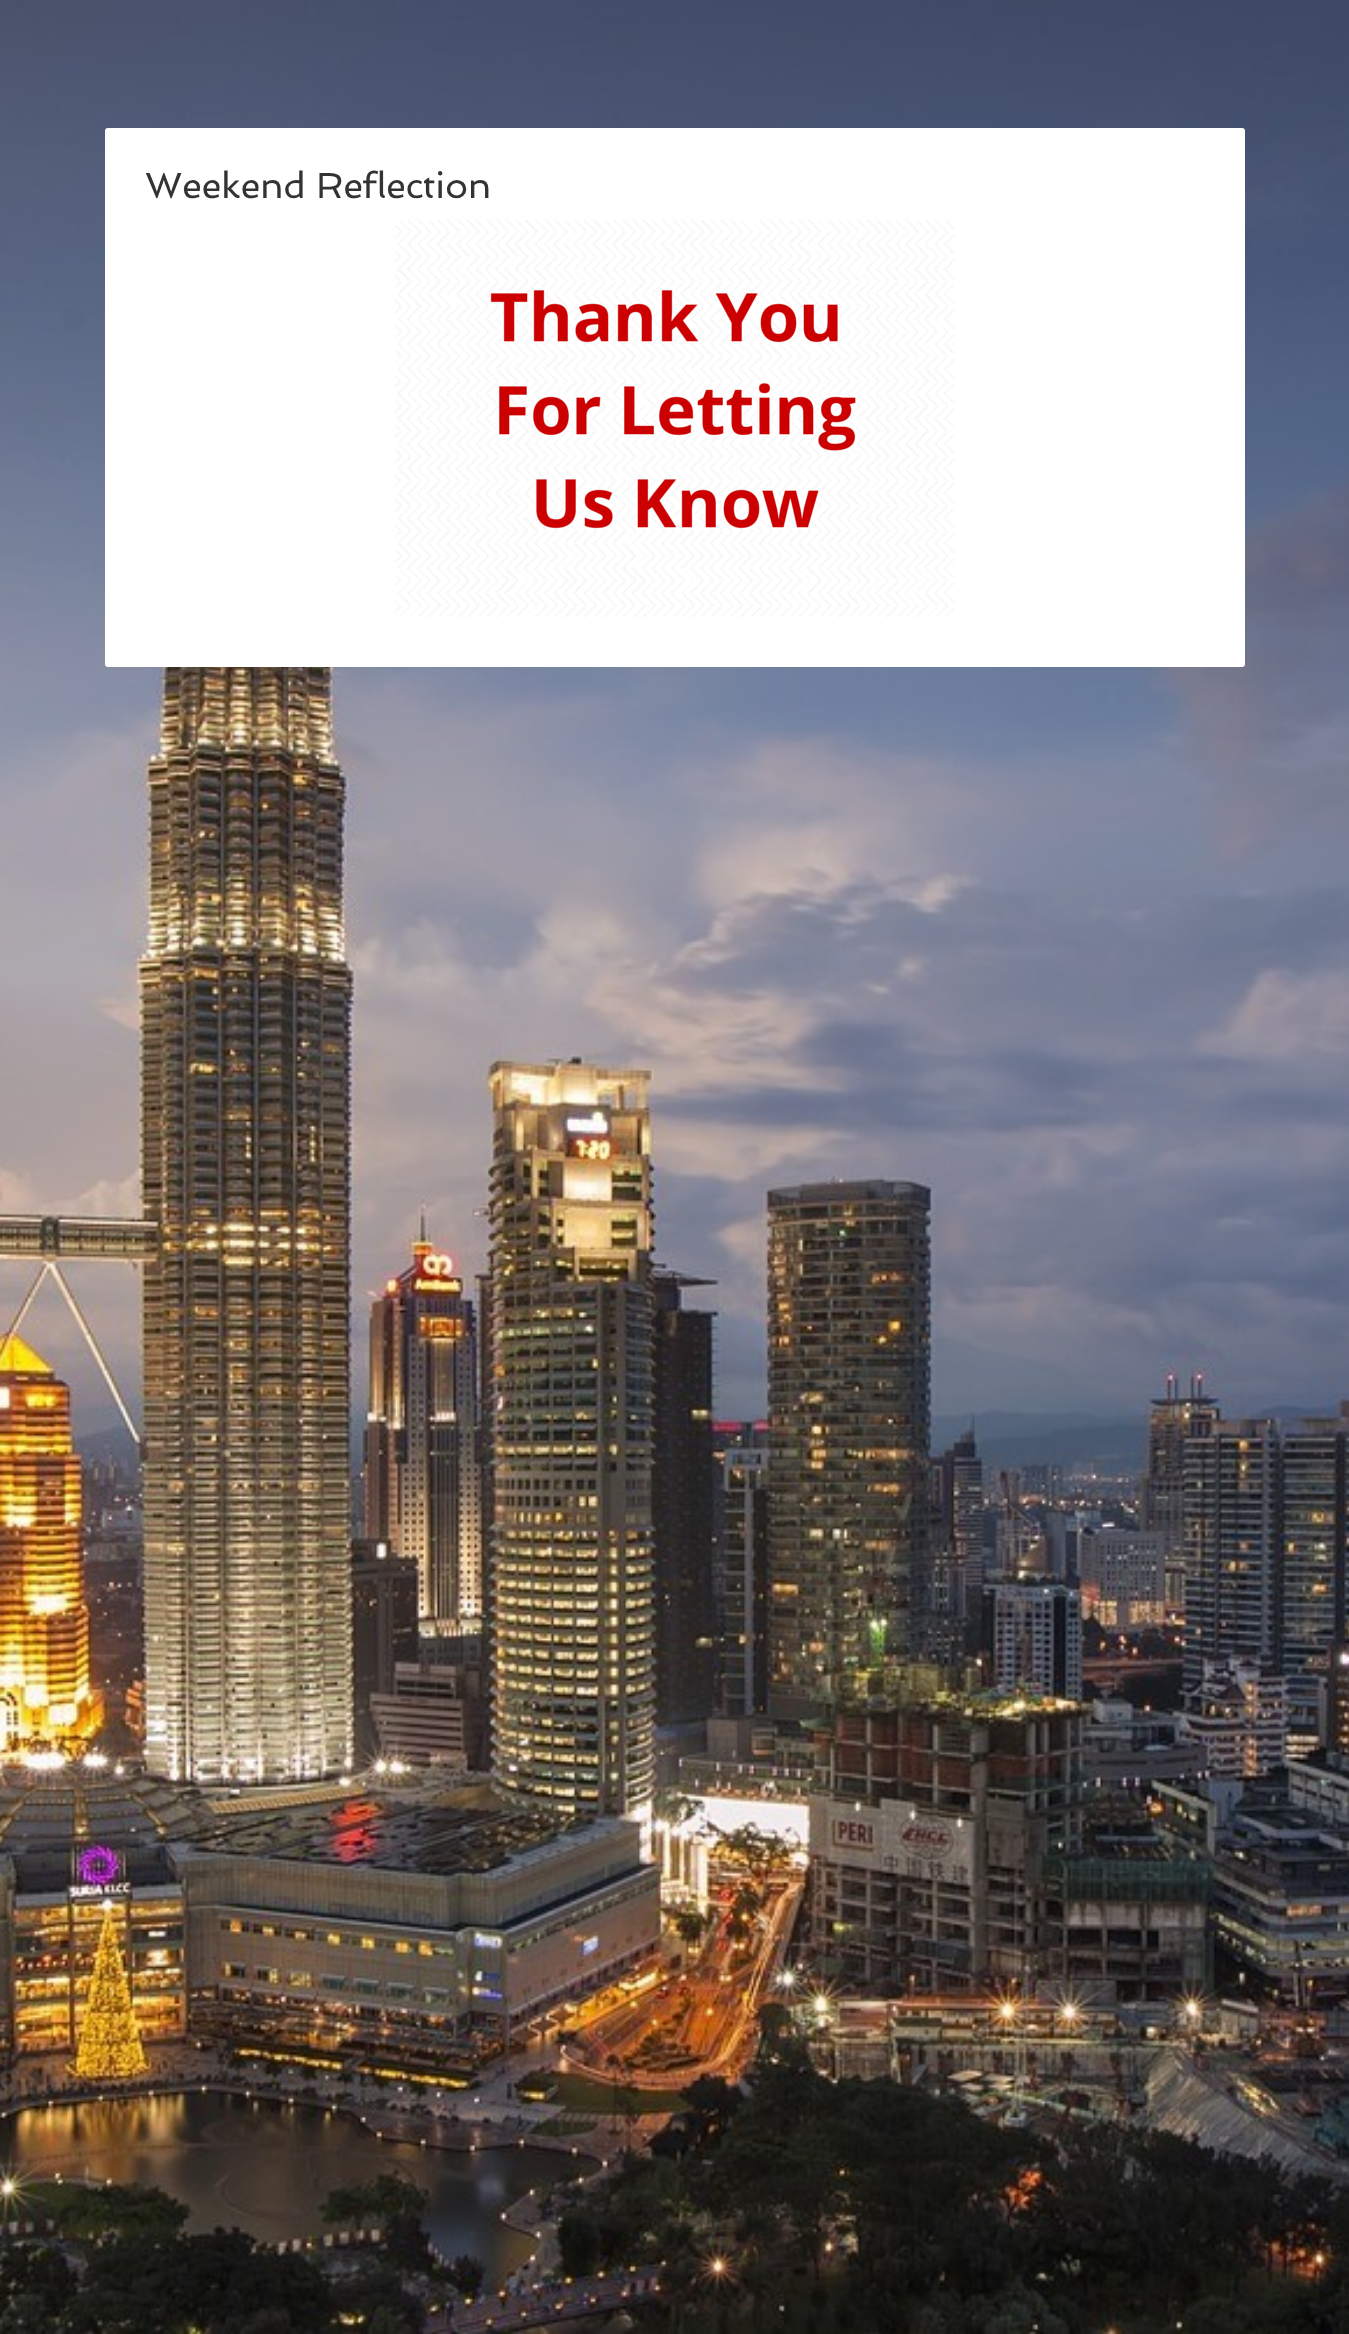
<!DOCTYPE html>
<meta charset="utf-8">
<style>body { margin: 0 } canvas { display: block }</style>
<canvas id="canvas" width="1349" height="2334"></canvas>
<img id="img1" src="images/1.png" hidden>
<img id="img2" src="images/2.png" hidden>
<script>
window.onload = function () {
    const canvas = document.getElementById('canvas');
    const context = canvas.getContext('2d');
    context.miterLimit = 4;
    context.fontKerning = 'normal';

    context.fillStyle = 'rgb(255, 255, 255)';
    context.fillRect(0, 0, 1349, 2334);
    context.drawImage(document.getElementById('img1'), 0, 0, 1349, 2334);
    context.beginPath();
    context.roundRect(105, 128, 1140, 539, 3);
    context.fill();
    context.drawImage(document.getElementById('img2'), 395, 220, 560, 397);
    context.font = '36px Spinnaker';
    context.fillStyle = 'rgb(51, 51, 51)';
    context.fillText('Weekend Reflection', 145, 198);
};
</script>
